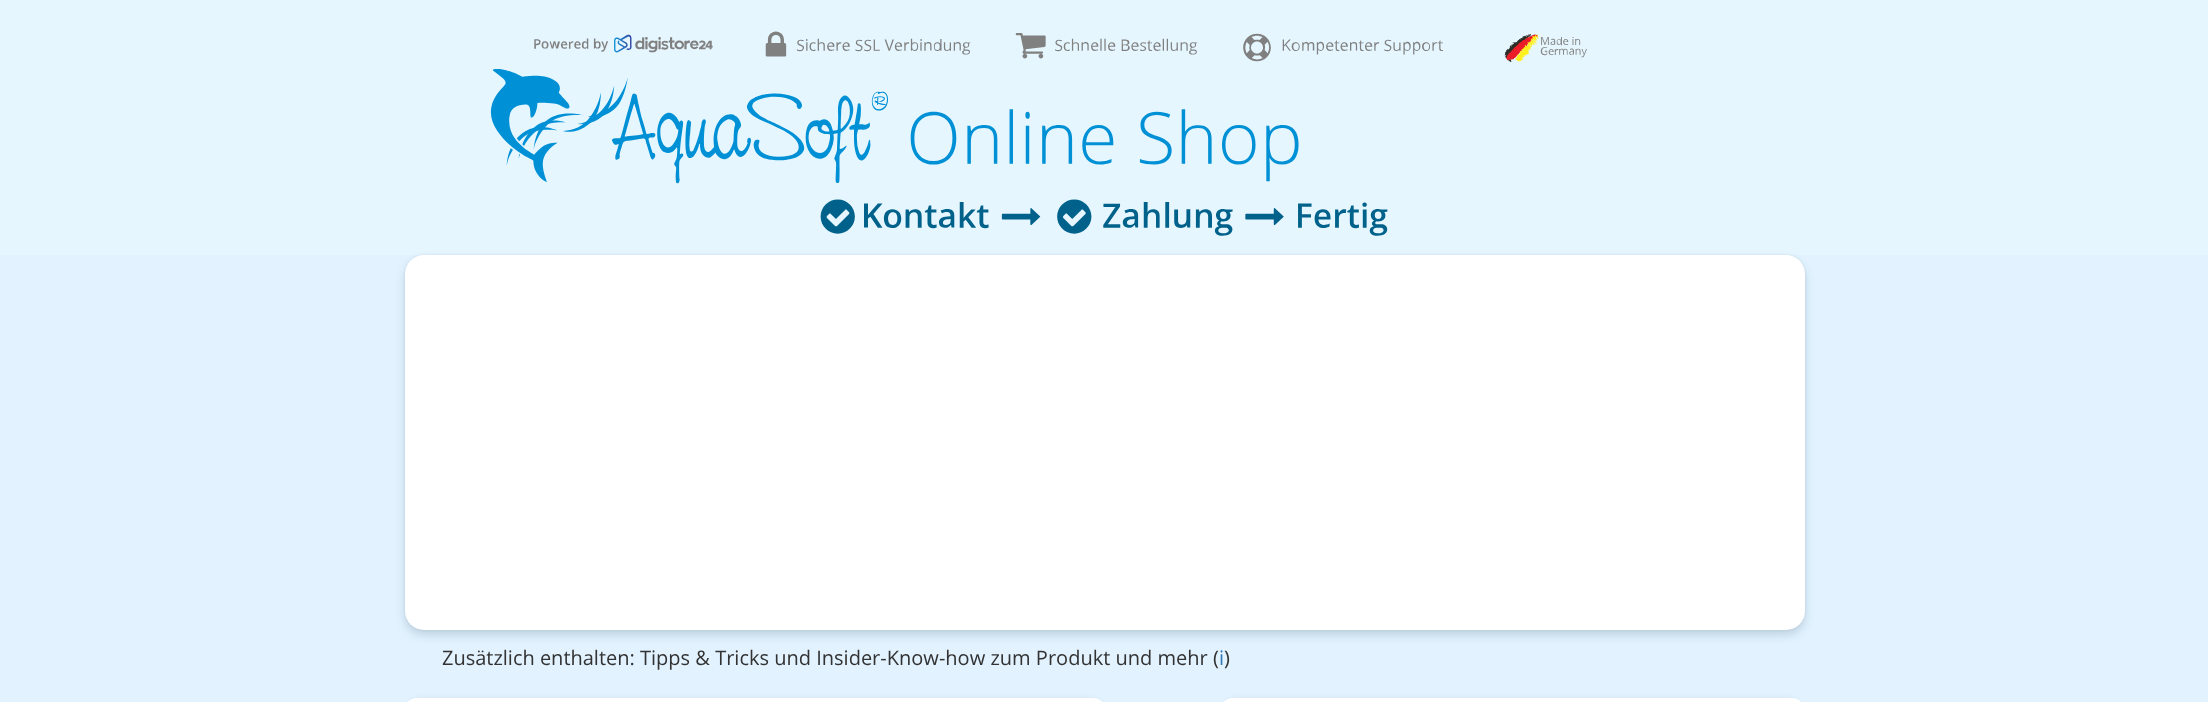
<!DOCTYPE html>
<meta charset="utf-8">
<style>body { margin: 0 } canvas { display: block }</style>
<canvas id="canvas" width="2208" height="702"></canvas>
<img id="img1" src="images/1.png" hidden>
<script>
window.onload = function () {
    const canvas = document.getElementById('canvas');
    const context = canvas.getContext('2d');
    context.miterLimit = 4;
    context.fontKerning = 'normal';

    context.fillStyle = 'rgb(229, 246, 255)';
    context.fillRect(0, 0, 2208, 702);
    context.drawImage(document.getElementById('img1'), 490, 31, 1097, 205);
    context.fillStyle = 'rgb(226, 243, 255)';
    context.fillRect(0, 255, 2208, 447);
    context.fillStyle = 'rgba(4, 37, 62, 0.16)';
    context.filter = 'blur(5px)';
    context.beginPath();
    context.roundRect(405, 260, 1400, 375, 19);
    context.fill();
    context.filter = 'none';
    context.fillStyle = 'rgba(4, 37, 62, 0.08)';
    context.filter = 'blur(1px)';
    context.beginPath();
    context.roundRect(405, 255, 1400, 375, 19);
    context.fill();
    context.filter = 'none';
    context.fillStyle = 'rgb(255, 255, 255)';
    context.beginPath();
    context.roundRect(405, 255, 1400, 375, 19);
    context.fill();
    context.fillStyle = 'rgba(4, 37, 62, 0.08)';
    context.filter = 'blur(2.5px)';
    context.beginPath();
    context.roundRect(405, 698, 700, 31, 19);
    context.fill();
    context.filter = 'none';
    context.fillStyle = 'rgb(255, 255, 255)';
    context.beginPath();
    context.roundRect(405, 698, 700, 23, 19);
    context.fill();
    context.fillStyle = 'rgba(4, 37, 62, 0.08)';
    context.filter = 'blur(2.5px)';
    context.beginPath();
    context.roundRect(1221, 698, 583, 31, 19);
    context.fill();
    context.filter = 'none';
    context.fillStyle = 'rgb(255, 255, 255)';
    context.beginPath();
    context.roundRect(1221, 698, 583, 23, 19);
    context.fill();
    context.font = '20px Open Sans';
    context.fillStyle = 'rgb(51, 51, 51)';
    context.fillText('Zusätzlich enthalten: Tipps & Tricks und Insider-Know-how zum Produkt und mehr ( )', 442, 665);
    context.fillStyle = 'rgb(51, 122, 183)';
    context.fillText('i', 1219, 665);
};
</script>
